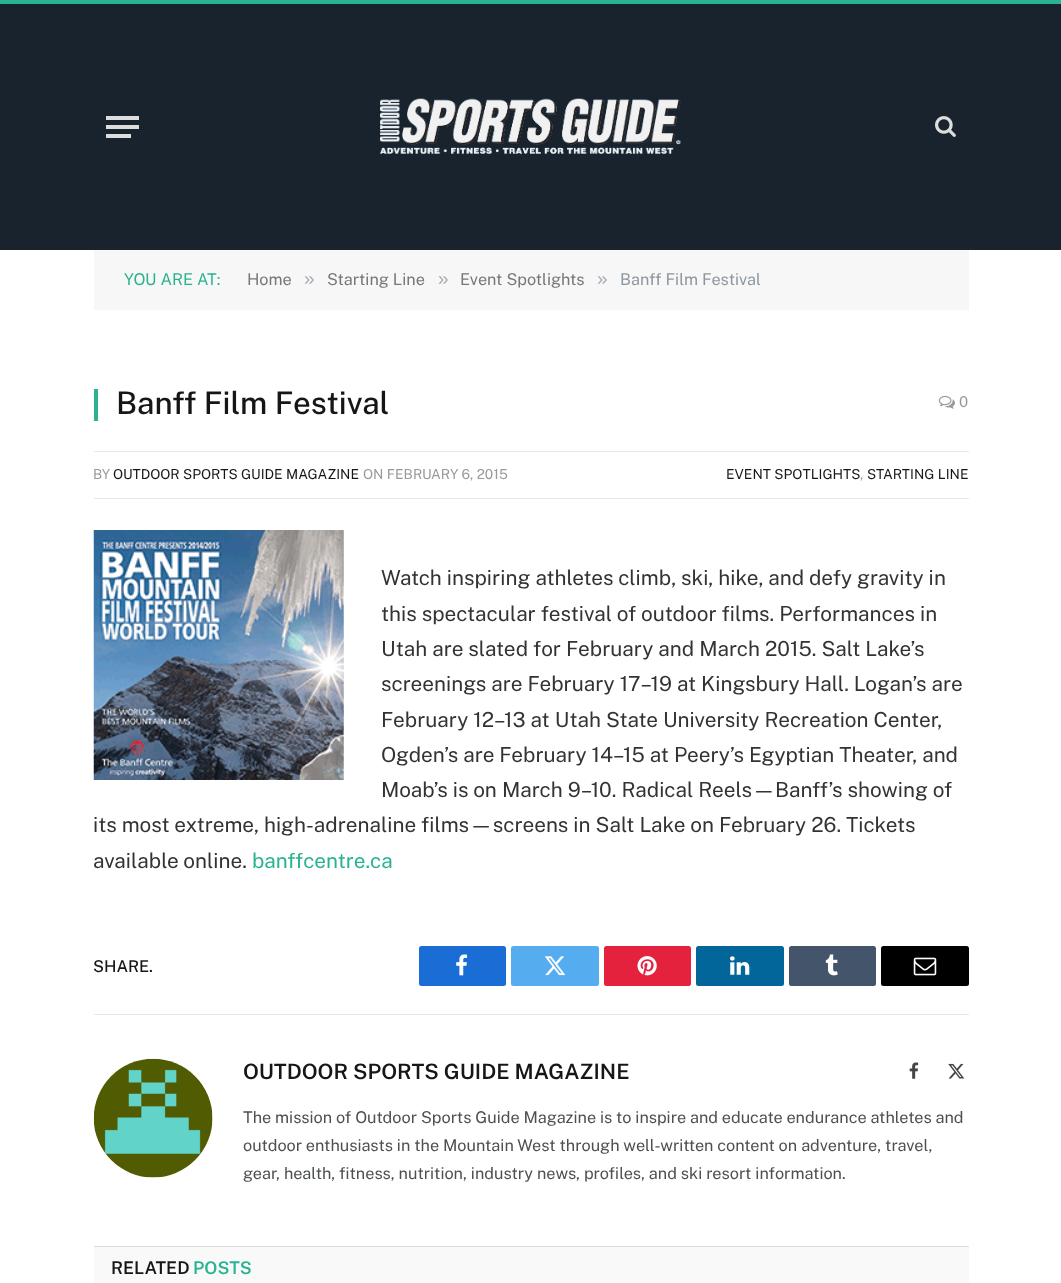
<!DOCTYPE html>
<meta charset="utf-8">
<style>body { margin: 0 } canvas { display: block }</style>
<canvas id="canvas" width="1061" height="1283"></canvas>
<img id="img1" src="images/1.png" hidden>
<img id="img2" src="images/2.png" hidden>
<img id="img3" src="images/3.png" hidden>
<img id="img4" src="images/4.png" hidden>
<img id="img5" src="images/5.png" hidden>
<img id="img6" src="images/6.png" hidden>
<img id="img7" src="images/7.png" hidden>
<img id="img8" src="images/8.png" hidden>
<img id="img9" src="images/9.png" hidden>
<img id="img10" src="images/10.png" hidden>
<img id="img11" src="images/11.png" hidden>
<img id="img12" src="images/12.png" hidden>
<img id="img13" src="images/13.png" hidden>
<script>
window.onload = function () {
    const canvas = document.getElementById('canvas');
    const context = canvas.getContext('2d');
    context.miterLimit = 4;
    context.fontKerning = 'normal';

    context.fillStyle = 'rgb(255, 255, 255)';
    context.fillRect(0, 0, 1061, 1283);
    context.fillStyle = 'rgb(25, 35, 45)';
    context.fillRect(0, 4, 1061, 245);
    context.fillStyle = 'rgb(42, 179, 145)';
    context.fillRect(0, 0, 1061, 4);
    context.fillStyle = 'rgb(34, 34, 34)';
    context.fillRect(0, 249, 1061, 1);
    context.fillStyle = 'rgb(221, 221, 221)';
    context.fillRect(106, 134, 25, 4);
    context.fillRect(106, 116, 33, 4);
    context.fillRect(106, 125, 33, 4);
    context.drawImage(document.getElementById('img1'), 380, 98, 301, 56);
    context.drawImage(document.getElementById('img2'), 935, 116, 21, 21);
    context.fillStyle = 'rgb(247, 247, 247)';
    context.fillRect(94, 250, 875, 60);
    context.fillStyle = 'rgb(42, 179, 145)';
    context.fillRect(94, 389, 4, 32);
    context.drawImage(document.getElementById('img3'), 938, 395, 17, 14);
    context.fillStyle = 'rgb(232, 232, 232)';
    context.fillRect(94, 451, 875, 1);
    context.fillRect(94, 498, 875, 1);
    context.drawImage(document.getElementById('img4'), 93, 530, 251, 250);
    context.fillStyle = 'rgb(26, 109, 212)';
    context.beginPath();
    context.roundRect(419, 946, 87, 40, 2.5);
    context.fill();
    context.drawImage(document.getElementById('img5'), 456, 954, 12, 22);
    context.fillStyle = 'rgb(85, 172, 239)';
    context.beginPath();
    context.roundRect(511, 946, 88, 40, 2.5);
    context.fill();
    context.drawImage(document.getElementById('img6'), 544, 956, 22, 20);
    context.fillStyle = 'rgb(228, 34, 62)';
    context.beginPath();
    context.roundRect(604, 946, 87, 40, 2.5);
    context.fill();
    context.drawImage(document.getElementById('img7'), 637, 956, 20, 20);
    context.fillStyle = 'rgb(2, 102, 154)';
    context.beginPath();
    context.roundRect(696, 946, 88, 40, 2.5);
    context.fill();
    context.drawImage(document.getElementById('img8'), 730, 956, 20, 19);
    context.fillStyle = 'rgb(68, 84, 107)';
    context.beginPath();
    context.roundRect(789, 946, 87, 40, 2.5);
    context.fill();
    context.drawImage(document.getElementById('img9'), 825, 954, 13, 22);
    context.fillStyle = 'rgb(0, 0, 0)';
    context.beginPath();
    context.roundRect(881, 946, 88, 40, 2.5);
    context.fill();
    context.drawImage(document.getElementById('img10'), 913, 957, 24, 19);
    context.fillStyle = 'rgb(232, 232, 232)';
    context.fillRect(94, 1014, 875, 1);
    context.drawImage(document.getElementById('img11'), 93, 1058, 120, 120);
    context.drawImage(document.getElementById('img12'), 909, 1062, 10, 17);
    context.drawImage(document.getElementById('img13'), 948, 1063, 17, 16);
    context.fillStyle = 'rgb(249, 249, 249)';
    context.fillRect(94, 1247, 875, 36);
    context.fillStyle = 'rgb(221, 221, 221)';
    context.fillRect(94, 1246, 875, 1);
    context.font = '16.25px Public Sans';
    context.fillStyle = 'rgb(42, 179, 145)';
    context.fillText('YOU ARE AT:', 124, 285);
    context.fillStyle = 'rgb(119, 119, 119)';
    context.fillText('Home', 247, 285);
    context.font = '19px Liberation Sans';
    context.fillStyle = 'rgb(162, 170, 178)';
    context.fillText('»', 304, 285);
    context.font = '16.25px Public Sans';
    context.fillStyle = 'rgb(119, 119, 119)';
    context.fillText('Starting Line', 327, 285);
    context.font = '19px Liberation Sans';
    context.fillStyle = 'rgb(162, 170, 178)';
    context.fillText('»', 438, 285);
    context.font = '16.25px Public Sans';
    context.fillStyle = 'rgb(119, 119, 119)';
    context.fillText('Event Spotlights', 460, 285);
    context.font = '19px Liberation Sans';
    context.fillStyle = 'rgb(162, 170, 178)';
    context.fillText('»', 597, 285);
    context.font = '16.25px Public Sans';
    context.fillStyle = 'rgb(141, 151, 161)';
    context.fillText('Banff Film Festival', 620, 285);
    context.font = '500 31.25px Public Sans';
    context.fillStyle = 'rgb(22, 22, 22)';
    context.fillText('Banff Film Festival', 116, 414);
    context.font = '15px Public Sans';
    context.fillStyle = 'rgb(153, 153, 153)';
    context.fillText('0', 959, 407);
    context.font = '13.75px Public Sans';
    context.fillText('BY', 93, 479);
    context.fillStyle = 'rgb(22, 22, 22)';
    context.fillText('OUTDOOR SPORTS GUIDE MAGAZINE', 113, 479);
    context.fillStyle = 'rgb(153, 153, 153)';
    context.fillText('ON FEBRUARY 6, 2015', 363, 479);
    context.fillStyle = 'rgb(22, 22, 22)';
    context.fillText('EVENT SPOTLIGHTS', 726, 479);
    context.fillStyle = 'rgb(153, 153, 153)';
    context.fillText(',', 860, 479);
    context.fillStyle = 'rgb(22, 22, 22)';
    context.fillText('STARTING LINE', 867, 479);
    context.font = '20.75px Public Sans';
    context.fillStyle = 'rgb(51, 51, 51)';
    context.fillText('Watch inspiring athletes climb, ski, hike, and defy gravity in', 381, 585);
    context.fillText('this spectacular festival of outdoor films. Performances in', 381, 621);
    context.fillText('Utah are slated for February and March 2015. Salt Lake’s', 381, 656);
    context.fillText('screenings are February 17–19 at Kingsbury Hall. Logan’s are', 381, 691);
    context.fillText('February 12–13 at Utah State University Recreation Center,', 381, 727);
    context.fillText('Ogden’s are February 14–15 at Peery’s Egyptian Theater, and', 381, 762);
    context.fillText('Moab’s is on March 9–10. Radical Reels—Banff’s showing of', 381, 797);
    context.fillText('its most extreme, high-adrenaline films—screens in Salt Lake on February 26. Tickets', 93, 832);
    context.fillText('available online.', 93, 868);
    context.fillStyle = 'rgb(42, 179, 145)';
    context.fillText('banffcentre.ca', 252, 868);
    context.font = '500 16.25px Public Sans';
    context.fillStyle = 'rgb(22, 22, 22)';
    context.fillText('SHARE.', 93, 972);
    context.font = '600 21.25px Public Sans';
    context.fillText('OUTDOOR SPORTS GUIDE MAGAZINE', 243, 1079);
    context.font = '16.25px Public Sans';
    context.fillStyle = 'rgb(77, 80, 83)';
    context.fillText('The mission of Outdoor Sports Guide Magazine is to inspire and educate endurance athletes and', 243, 1123);
    context.fillText('outdoor enthusiasts in the Mountain West through well-written content on adventure, travel,', 243, 1151);
    context.fillText('gear, health, fitness, nutrition, industry news, profiles, and ski resort information.', 243, 1179);
    context.font = '600 17.5px Public Sans';
    context.fillStyle = 'rgb(22, 22, 22)';
    context.fillText('RELATED', 111, 1274);
    context.fillStyle = 'rgb(42, 179, 145)';
    context.fillText('POSTS', 193, 1274);
};
</script>
